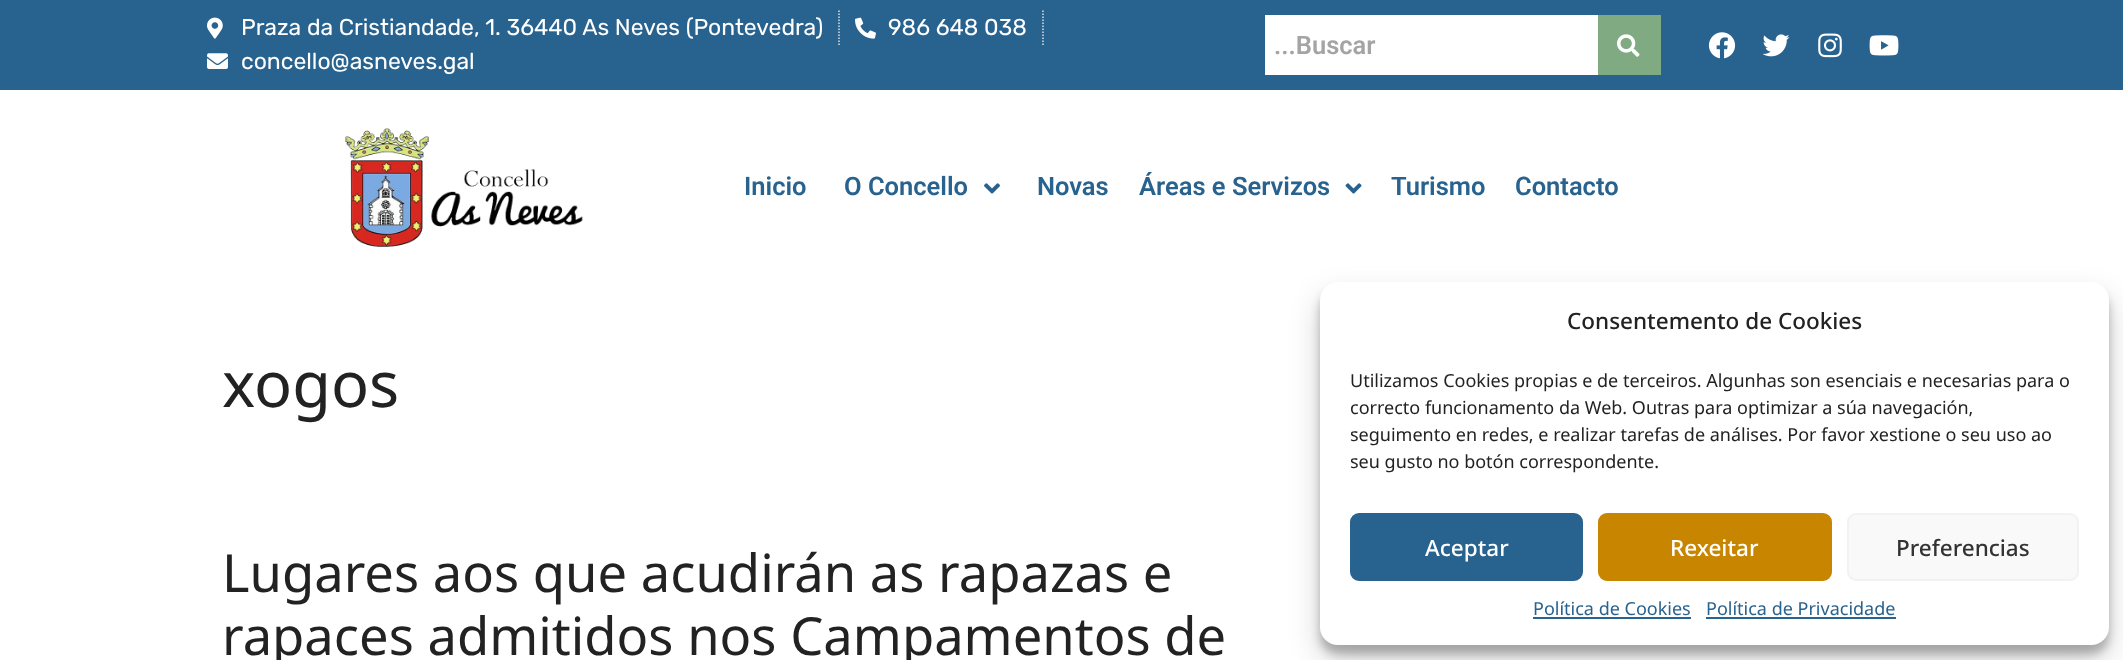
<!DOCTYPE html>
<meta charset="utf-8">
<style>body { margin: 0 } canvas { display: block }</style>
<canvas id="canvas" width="2123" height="660"></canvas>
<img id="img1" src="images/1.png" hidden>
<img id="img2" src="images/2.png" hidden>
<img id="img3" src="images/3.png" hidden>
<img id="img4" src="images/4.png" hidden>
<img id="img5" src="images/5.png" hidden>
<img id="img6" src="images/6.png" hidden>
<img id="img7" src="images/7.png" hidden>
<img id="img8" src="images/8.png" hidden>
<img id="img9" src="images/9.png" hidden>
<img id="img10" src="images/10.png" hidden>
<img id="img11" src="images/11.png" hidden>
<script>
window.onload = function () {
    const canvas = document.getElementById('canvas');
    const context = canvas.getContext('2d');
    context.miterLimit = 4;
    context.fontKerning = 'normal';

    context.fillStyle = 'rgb(255, 255, 255)';
    context.fillRect(0, 0, 2123, 660);
    context.fillStyle = 'rgb(40, 98, 142)';
    context.fillRect(0, 0, 2123, 90);
    context.drawImage(document.getElementById('img1'), 207, 17, 16, 22);
    context.beginPath();
    context.moveTo(839, 10.5);
    context.lineTo(839, 45);
    context.strokeStyle = 'rgb(224, 224, 224)';
    context.lineWidth = 1.5;
    context.setLineDash([1.5, 1.5]);
    context.stroke();
    context.drawImage(document.getElementById('img2'), 855, 17, 21, 22);
    context.beginPath();
    context.moveTo(1043, 10.5);
    context.lineTo(1043, 45);
    context.stroke();
    context.drawImage(document.getElementById('img3'), 207, 53, 21, 16);
    context.fillStyle = 'rgb(255, 255, 255)';
    context.fillRect(1265, 15, 333, 60);
    context.fillStyle = 'rgb(128, 171, 130)';
    context.fillRect(1598, 15, 63, 60);
    context.drawImage(document.getElementById('img4'), 1617, 34, 23, 23);
    context.drawImage(document.getElementById('img5'), 1708, 32, 28, 27);
    context.drawImage(document.getElementById('img6'), 1762, 34, 28, 23);
    context.drawImage(document.getElementById('img7'), 1818, 33, 24, 25);
    context.drawImage(document.getElementById('img8'), 1869, 35, 30, 21);
    context.drawImage(document.getElementById('img9'), 345, 128, 238, 119);
    context.drawImage(document.getElementById('img10'), 984, 183, 16, 11);
    context.drawImage(document.getElementById('img11'), 1345, 183, 17, 11);
    context.fillStyle = 'rgba(0, 0, 0, 0.23)';
    context.filter = 'blur(4.5px)';
    context.beginPath();
    context.roundRect(1320, 291, 789, 363, 18);
    context.fill();
    context.filter = 'none';
    context.fillStyle = 'rgba(0, 0, 0, 0.19)';
    context.filter = 'blur(15px)';
    context.beginPath();
    context.roundRect(1320, 297, 789, 363, 18);
    context.fill();
    context.filter = 'none';
    context.fillStyle = 'rgb(255, 255, 255)';
    context.beginPath();
    context.roundRect(1320, 282, 789, 363, 18);
    context.fill();
    context.fillStyle = 'rgb(40, 98, 142)';
    context.beginPath();
    context.roundRect(1351, 514, 231, 66, 8);
    context.fill();
    context.strokeStyle = 'rgb(40, 98, 142)';
    context.lineWidth = 2;
    context.setLineDash([]);
    context.stroke();
    context.fillStyle = 'rgb(200, 133, 0)';
    context.beginPath();
    context.roundRect(1599, 514, 232, 66, 8);
    context.fill();
    context.strokeStyle = 'rgb(200, 133, 0)';
    context.stroke();
    context.fillStyle = 'rgb(249, 249, 249)';
    context.beginPath();
    context.roundRect(1848, 514, 230, 66, 8);
    context.fill();
    context.strokeStyle = 'rgb(242, 242, 242)';
    context.stroke();
    context.fillStyle = 'rgb(40, 98, 142)';
    context.fillRect(1533, 617, 158, 2);
    context.fillRect(1706, 617, 190, 2);
    context.font = '22.95px Rubik';
    context.fillStyle = 'rgb(255, 255, 255)';
    context.fillText('Praza da Cristiandade, 1. 36440 As Neves (Pontevedra)', 241, 35);
    context.fillText('986 648 038', 888, 35);
    context.fillText('concello@asneves.gal', 241, 69);
    context.font = '600 25.5px Roboto';
    context.fillStyle = 'rgb(164, 164, 164)';
    context.fillText('...Buscar', 1274, 54);
    context.fillStyle = 'rgb(40, 98, 142)';
    context.fillText('Inicio', 744, 195);
    context.fillText('O Concello', 844, 195);
    context.fillText('Novas', 1037, 195);
    context.fillText('Áreas e Servizos', 1139, 195);
    context.fillText('Turismo', 1391, 195);
    context.fillText('Contacto', 1515, 195);
    context.font = '63px Noto Sans';
    context.fillStyle = 'rgb(34, 34, 34)';
    context.fillText('xogos', 222, 407);
    context.font = '52.5px Noto Sans';
    context.fillText('Lugares aos que acudirán as rapazas e', 222, 592);
    context.fillText('rapaces admitidos nos Campamentos de', 222, 655);
    context.font = '500 22.5px Noto Sans';
    context.fillText('Consentemento de Cookies', 1567, 329);
    context.font = '18px Noto Sans';
    context.fillText('Utilizamos Cookies propias e de terceiros. Algunhas son esenciais e necesarias para o', 1350, 387);
    context.fillText('correcto funcionamento da Web. Outras para optimizar a súa navegación,', 1350, 414);
    context.fillText('seguimento en redes, e realizar tarefas de análises. Por favor xestione o seu uso ao', 1350, 441);
    context.fillText('seu gusto no botón correspondente.', 1350, 468);
    context.font = '500 22.5px Noto Sans';
    context.fillStyle = 'rgb(255, 255, 255)';
    context.fillText('Aceptar', 1425, 556);
    context.fillText('Rexeitar', 1670, 556);
    context.fillStyle = 'rgb(51, 51, 51)';
    context.fillText('Preferencias', 1896, 556);
    context.font = '18px Noto Sans';
    context.fillStyle = 'rgb(40, 98, 142)';
    context.fillText('Política de Cookies', 1533, 615);
    context.fillText('Política de Privacidade', 1706, 615);
};
</script>
